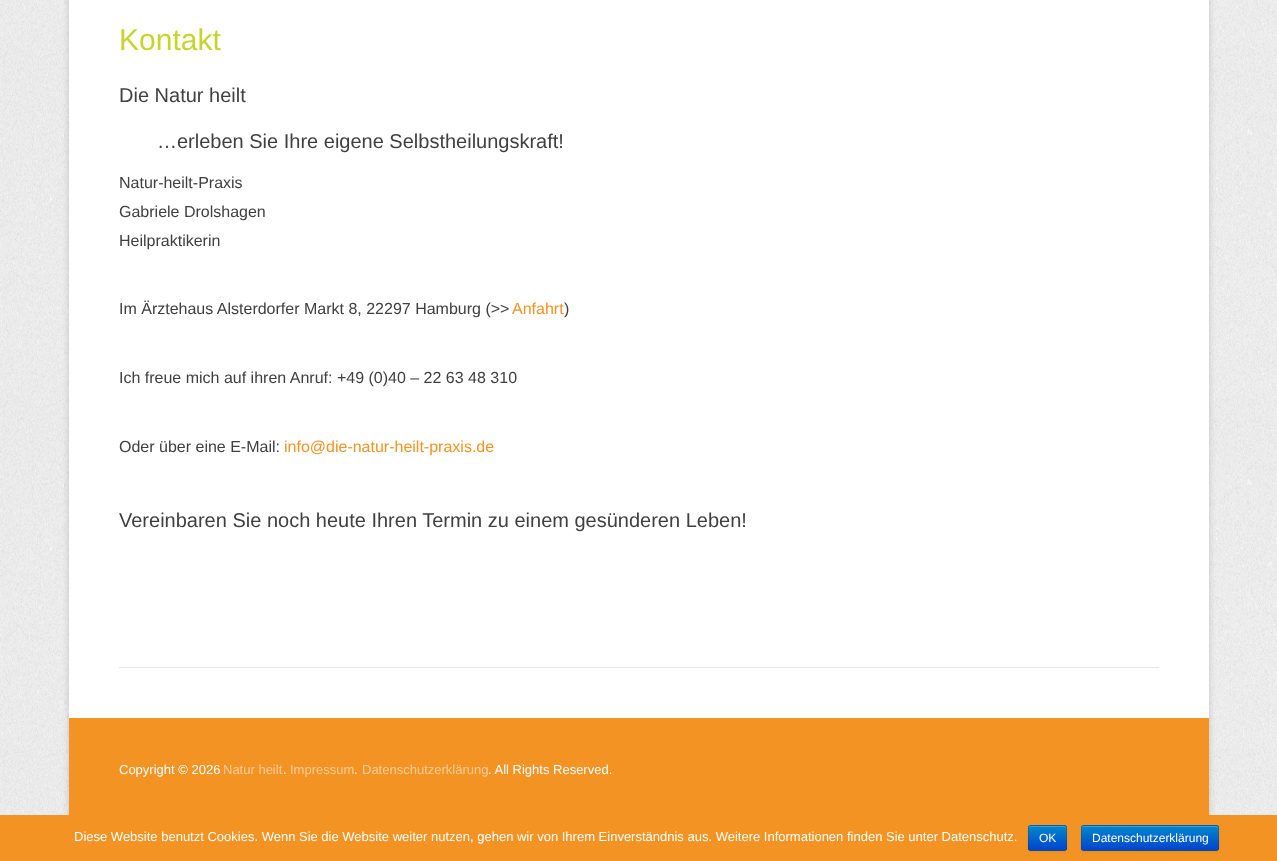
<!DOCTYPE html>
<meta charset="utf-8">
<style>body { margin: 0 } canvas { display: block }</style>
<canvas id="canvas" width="1277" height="861"></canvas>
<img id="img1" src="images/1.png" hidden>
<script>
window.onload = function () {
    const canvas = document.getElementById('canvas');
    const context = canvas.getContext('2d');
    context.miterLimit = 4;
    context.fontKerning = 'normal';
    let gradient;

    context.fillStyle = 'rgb(255, 255, 255)';
    context.fillRect(0, 0, 1277, 861);
    context.drawImage(document.getElementById('img1'), 0, 0, 1277, 815);
    context.fillStyle = 'rgba(100, 100, 100, 0.3)';
    context.filter = 'blur(3px)';
    context.beginPath();
    context.rect(69, -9, 1140, 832);
    context.fill();
    context.filter = 'none';
    context.fillStyle = 'rgb(255, 255, 255)';
    context.fillRect(69, 0, 1140, 718);
    context.fillStyle = 'rgb(230, 230, 230)';
    context.fillRect(119, 667, 1040, 1);
    context.fillStyle = 'rgb(243, 147, 35)';
    context.fillRect(69, 718, 1140, 97);
    context.fillRect(0, 815, 1277, 46);
    context.fillStyle = 'rgba(0, 0, 0, 0.05)';
    context.filter = 'blur(1px)';
    context.beginPath();
    context.roundRect(1028, 826, 39, 26, 3);
    context.fill();
    context.filter = 'none';
    context.fillStyle = 'rgb(0, 109, 204)';
    context.beginPath();
    context.roundRect(1028, 825, 39, 26, 3);
    context.fill();
    context.save();
    context.beginPath();
    context.roundRect(1028, 825, 39, 26, 3);
    context.clip();
    gradient = context.createLinearGradient(1048, 826, 1048, 850);
    gradient.addColorStop(0, 'rgb(0, 136, 204)');
    gradient.addColorStop(1, 'rgb(0, 68, 204)');
    context.fillStyle = gradient;
    context.fillRect(1028, 826, 39, 24);
    context.restore();
    context.fillStyle = 'rgba(255, 255, 255, 0.2)';
    context.beginPath();
    context.moveTo(1031, 827);
    context.lineTo(1064, 827);
    context.bezierCurveTo(1065, 827, 1066, 828, 1066, 829);
    context.bezierCurveTo(1066, 824.5, 1062.5, 826, 1058.5, 826);
    context.lineTo(1036.5, 826);
    context.bezierCurveTo(1032.5, 826, 1029, 824.5, 1029, 829);
    context.bezierCurveTo(1029, 828, 1030, 827, 1031, 827);
    context.closePath();
    context.fill();
    context.beginPath();
    context.moveTo(1066, 850);
    context.bezierCurveTo(1065.5, 850, 1064.5, 850.5, 1064, 850.5);
    context.lineTo(1031, 850.5);
    context.bezierCurveTo(1030.5, 850.5, 1029.5, 850, 1029, 850);
    context.strokeStyle = 'rgba(0, 0, 0, 0.25)';
    context.stroke();
    context.beginPath();
    context.moveTo(1029, 850);
    context.bezierCurveTo(1029, 849.5, 1028.5, 848.5, 1028.5, 848);
    context.lineTo(1028.5, 828);
    context.bezierCurveTo(1028.5, 827.5, 1029, 826.5, 1029, 826);
    context.bezierCurveTo(1029.5, 826, 1030.5, 825.5, 1031, 825.5);
    context.lineTo(1064, 825.5);
    context.bezierCurveTo(1064.5, 825.5, 1065.5, 826, 1066, 826);
    context.bezierCurveTo(1066, 826.5, 1066.5, 827.5, 1066.5, 828);
    context.lineTo(1066.5, 848);
    context.bezierCurveTo(1066.5, 848.5, 1066, 849.5, 1066, 850);
    context.strokeStyle = 'rgba(0, 0, 0, 0.1)';
    context.stroke();
    context.fillStyle = 'rgba(0, 0, 0, 0.05)';
    context.filter = 'blur(1px)';
    context.beginPath();
    context.roundRect(1081, 826, 138, 26, 3);
    context.fill();
    context.filter = 'none';
    context.fillStyle = 'rgb(0, 109, 204)';
    context.beginPath();
    context.roundRect(1081, 825, 138, 26, 3);
    context.fill();
    context.save();
    context.beginPath();
    context.roundRect(1081, 825, 138, 26, 3);
    context.clip();
    gradient = context.createLinearGradient(1150, 826, 1150, 850);
    gradient.addColorStop(0, 'rgb(0, 136, 204)');
    gradient.addColorStop(1, 'rgb(0, 68, 204)');
    context.fillStyle = gradient;
    context.fillRect(1081, 826, 138, 24);
    context.restore();
    context.fillStyle = 'rgba(255, 255, 255, 0.2)';
    context.beginPath();
    context.moveTo(1084, 827);
    context.lineTo(1216, 827);
    context.bezierCurveTo(1217, 827, 1218, 828, 1218, 829);
    context.bezierCurveTo(1218, 828, 1218, 826, 1216, 826);
    context.lineTo(1084, 826);
    context.bezierCurveTo(1082, 826, 1082, 828, 1082, 829);
    context.bezierCurveTo(1082, 828, 1083, 827, 1084, 827);
    context.closePath();
    context.fill();
    context.beginPath();
    context.moveTo(1218, 850);
    context.lineTo(1216, 850.5);
    context.lineTo(1106, 850.5);
    context.lineTo(1084, 850.5);
    context.lineTo(1082, 850);
    context.strokeStyle = 'rgba(0, 0, 0, 0.25)';
    context.stroke();
    context.beginPath();
    context.moveTo(1082, 850);
    context.bezierCurveTo(1080.5, 848, 1081.5, 840.5, 1081.5, 838);
    context.lineTo(1081.5, 831.5);
    context.bezierCurveTo(1081.5, 829.5, 1081, 825.5, 1084, 825.5);
    context.lineTo(1216, 825.5);
    context.bezierCurveTo(1219, 825.5, 1218.5, 829.5, 1218.5, 831.5);
    context.lineTo(1218.5, 838);
    context.bezierCurveTo(1218.5, 840.5, 1219.5, 848, 1218, 850);
    context.strokeStyle = 'rgba(0, 0, 0, 0.1)';
    context.stroke();
    context.font = '30px Liberation Sans';
    context.fillStyle = 'rgb(199, 212, 45)';
    context.fillText('Kontakt', 119, 50);
    context.font = '20px Liberation Sans';
    context.fillStyle = 'rgb(64, 64, 64)';
    context.fillText('Die Natur heilt', 119, 102);
    context.fillText('…erleben Sie Ihre eigene Selbstheilungskraft!', 157, 148);
    context.font = '16px Liberation Sans';
    context.fillText('Natur-heilt-Praxis', 119, 188);
    context.fillText('Gabriele Drolshagen', 119, 217);
    context.fillText('Heilpraktikerin', 119, 246);
    context.fillText('Im Ärztehaus Alsterdorfer Markt 8, 22297 Hamburg (>>', 119, 314);
    context.fillStyle = 'rgb(243, 147, 35)';
    context.fillText('Anfahrt', 512, 314);
    context.fillStyle = 'rgb(64, 64, 64)';
    context.fillText(')', 564, 314);
    context.fillText('Ich freue mich auf ihren Anruf: +49 (0)40 – 22 63 48 310', 119, 383);
    context.fillText('Oder über eine E-Mail:', 119, 452);
    context.fillStyle = 'rgb(243, 147, 35)';
    context.fillText('info@die-natur-heilt-praxis.de', 284, 452);
    context.font = '20px Liberation Sans';
    context.fillStyle = 'rgb(64, 64, 64)';
    context.fillText('Vereinbaren Sie noch heute Ihren Termin zu einem gesünderen Leben!', 119, 527);
    context.font = '13px Liberation Sans';
    context.fillStyle = 'rgb(255, 255, 255)';
    context.fillText('Copyright © 2026', 119, 774);
    context.fillStyle = 'rgb(255, 204, 153)';
    context.fillText('Natur heilt', 223, 774);
    context.fillStyle = 'rgb(255, 255, 255)';
    context.fillText('.', 283, 774);
    context.fillStyle = 'rgb(255, 204, 153)';
    context.fillText('Impressum', 290, 774);
    context.fillStyle = 'rgb(255, 255, 255)';
    context.fillText('.', 354, 774);
    context.fillStyle = 'rgb(255, 204, 153)';
    context.fillText('Datenschutzerklärung', 362, 774);
    context.fillStyle = 'rgb(255, 255, 255)';
    context.fillText('. All Rights Reserved.', 488, 774);
    context.fillText('Diese Website benutzt Cookies. Wenn Sie die Website weiter nutzen, gehen wir von Ihrem Einverständnis aus. Weitere Informationen finden Sie unter Datenschutz.', 74, 841);
    context.font = '12px Liberation Sans';
    context.fillText('OK', 1039, 842);
    context.fillText('Datenschutzerklärung', 1092, 842);
};
</script>
